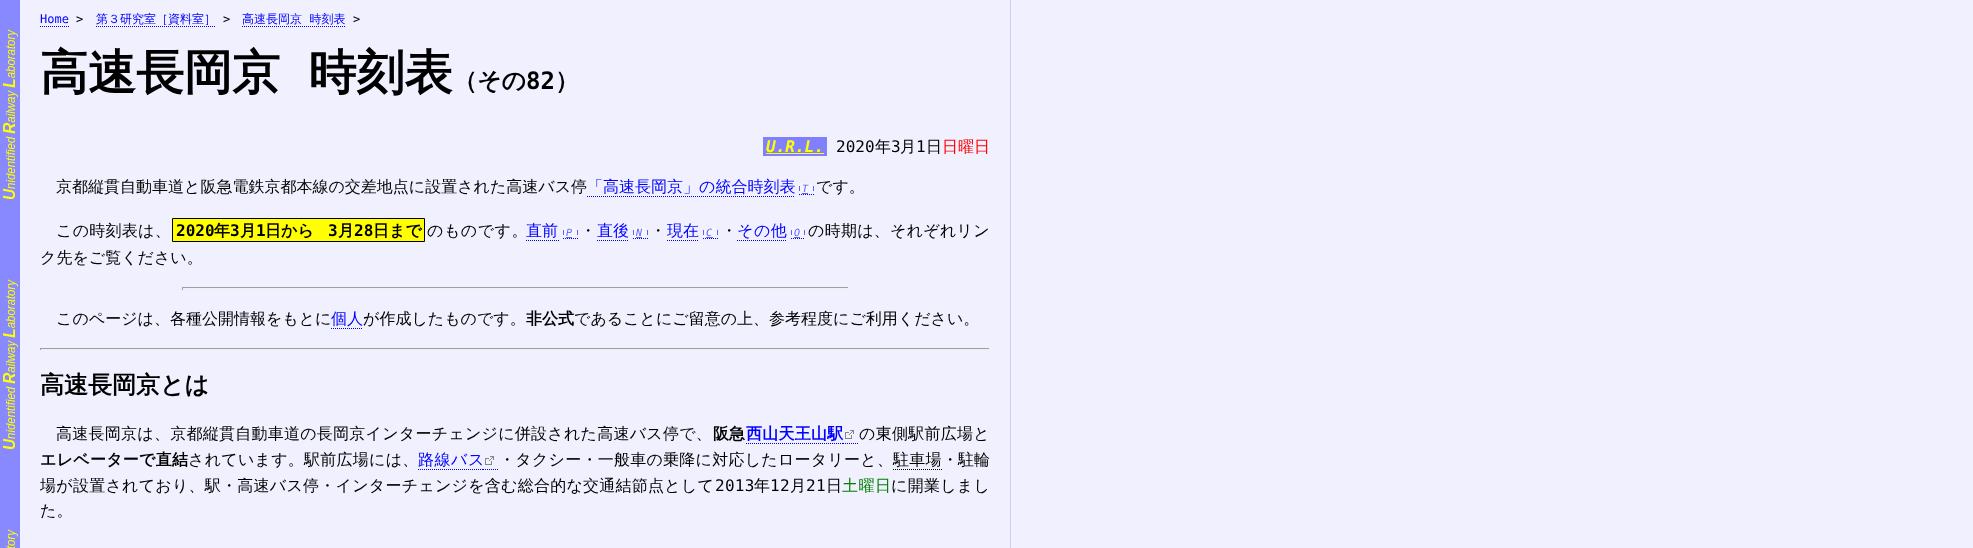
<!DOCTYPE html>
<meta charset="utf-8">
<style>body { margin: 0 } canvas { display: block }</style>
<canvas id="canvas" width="1973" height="548"></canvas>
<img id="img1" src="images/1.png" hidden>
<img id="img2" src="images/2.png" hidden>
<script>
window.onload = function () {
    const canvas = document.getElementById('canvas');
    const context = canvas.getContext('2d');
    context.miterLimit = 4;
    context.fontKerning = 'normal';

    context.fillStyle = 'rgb(240, 240, 255)';
    context.fillRect(0, 0, 1973, 548);
    context.drawImage(document.getElementById('img1'), 0, 0, 20, 548);
    context.fillStyle = 'rgb(204, 204, 255)';
    context.fillRect(1010, 0, 1, 548);
    context.beginPath();
    context.moveTo(40, 26.5);
    context.lineTo(69, 26.5);
    context.strokeStyle = 'rgb(0, 0, 255)';
    context.setLineDash([1, 1]);
    context.stroke();
    context.beginPath();
    context.moveTo(96, 26.5);
    context.lineTo(216, 26.5);
    context.stroke();
    context.beginPath();
    context.moveTo(242, 26.5);
    context.lineTo(346, 26.5);
    context.stroke();
    context.fillStyle = 'rgb(128, 128, 255)';
    context.fillRect(763, 137, 64, 19);
    context.fillStyle = 'rgb(255, 255, 0)';
    context.fillRect(766, 153, 58, 1);
    context.beginPath();
    context.moveTo(587, 196.5);
    context.lineTo(795, 196.5);
    context.stroke();
    context.beginPath();
    context.moveTo(799, 194.5);
    context.lineTo(814, 194.5);
    context.stroke();
    context.fillStyle = 'rgb(245, 245, 255)';
    context.beginPath();
    context.moveTo(803, 183);
    context.lineTo(810.5, 183);
    context.bezierCurveTo(814, 184.5, 814, 194, 810, 194);
    context.lineTo(802.5, 194);
    context.bezierCurveTo(799, 192.5, 799.5, 183, 803, 183);
    context.closePath();
    context.fill();
    context.fillStyle = 'rgb(96, 96, 255)';
    context.fillRect(813, 186, 1, 5);
    context.fillRect(799, 186, 1, 5);
    context.fillRect(802, 193, 6, 1);
    context.fillStyle = 'rgb(255, 255, 0)';
    context.beginPath();
    context.rect(172.5, 218.5, 252, 23);
    context.fill();
    context.strokeStyle = 'rgb(0, 0, 0)';
    context.setLineDash([]);
    context.stroke();
    context.beginPath();
    context.moveTo(526, 240.5);
    context.lineTo(559, 240.5);
    context.moveTo(563, 238.5);
    context.lineTo(578, 238.5);
    context.strokeStyle = 'rgb(0, 0, 255)';
    context.setLineDash([1, 1]);
    context.stroke();
    context.fillStyle = 'rgb(245, 245, 255)';
    context.beginPath();
    context.moveTo(567, 227);
    context.lineTo(574.5, 227);
    context.bezierCurveTo(578, 228.5, 578, 238, 574, 238);
    context.lineTo(566.5, 238);
    context.bezierCurveTo(563, 236.5, 563.5, 227, 567, 227);
    context.closePath();
    context.fill();
    context.fillStyle = 'rgb(96, 96, 255)';
    context.fillRect(577, 230, 1, 5);
    context.fillRect(563, 230, 1, 5);
    context.fillRect(566, 237, 6, 1);
    context.beginPath();
    context.moveTo(597, 240.5);
    context.lineTo(629, 240.5);
    context.moveTo(633, 238.5);
    context.lineTo(648, 238.5);
    context.stroke();
    context.fillStyle = 'rgb(245, 245, 255)';
    context.beginPath();
    context.moveTo(637, 227);
    context.lineTo(644.5, 227);
    context.bezierCurveTo(648, 228.5, 648, 238, 644, 238);
    context.lineTo(636.5, 238);
    context.bezierCurveTo(633, 236.5, 633.5, 227, 637, 227);
    context.closePath();
    context.fill();
    context.fillStyle = 'rgb(96, 96, 255)';
    context.fillRect(647, 230, 1, 5);
    context.fillRect(633, 230, 1, 5);
    context.fillRect(636, 237, 6, 1);
    context.beginPath();
    context.moveTo(667, 240.5);
    context.lineTo(699, 240.5);
    context.moveTo(703, 238.5);
    context.lineTo(718, 238.5);
    context.stroke();
    context.fillStyle = 'rgb(245, 245, 255)';
    context.beginPath();
    context.moveTo(707, 227);
    context.lineTo(714.5, 227);
    context.bezierCurveTo(718, 228.5, 718, 238, 714, 238);
    context.lineTo(706.5, 238);
    context.bezierCurveTo(703, 236.5, 703.5, 227, 707, 227);
    context.closePath();
    context.fill();
    context.fillStyle = 'rgb(96, 96, 255)';
    context.fillRect(717, 230, 1, 5);
    context.fillRect(703, 230, 1, 5);
    context.fillRect(706, 237, 7, 1);
    context.beginPath();
    context.moveTo(737, 240.5);
    context.lineTo(787, 240.5);
    context.stroke();
    context.beginPath();
    context.moveTo(791, 238.5);
    context.lineTo(805, 238.5);
    context.stroke();
    context.fillStyle = 'rgb(245, 245, 255)';
    context.beginPath();
    context.moveTo(795, 227);
    context.lineTo(801.5, 227);
    context.bezierCurveTo(805, 228.5, 805, 237.5, 801, 238);
    context.lineTo(794.5, 238);
    context.bezierCurveTo(791, 236.5, 791.5, 227, 795, 227);
    context.closePath();
    context.fill();
    context.fillStyle = 'rgb(96, 96, 255)';
    context.fillRect(804, 230, 1, 5);
    context.fillRect(791, 230, 1, 5);
    context.fillRect(794, 237, 6, 1);
    context.fillStyle = 'rgb(159, 159, 159)';
    context.fillRect(182, 287, 667, 1);
    context.fillStyle = 'rgb(238, 238, 238)';
    context.fillRect(848, 287, 1, 3);
    context.fillRect(182, 289, 667, 1);
    context.fillStyle = 'rgb(159, 159, 159)';
    context.fillRect(182, 287, 1, 3);
    context.beginPath();
    context.moveTo(331, 328.5);
    context.lineTo(363, 328.5);
    context.stroke();
    context.fillRect(40, 348, 950, 1);
    context.fillStyle = 'rgb(238, 238, 238)';
    context.fillRect(989, 348, 1, 2);
    context.fillRect(40, 349, 950, 1);
    context.fillStyle = 'rgb(159, 159, 159)';
    context.fillRect(40, 348, 1, 2);
    context.beginPath();
    context.moveTo(746, 443.5);
    context.lineTo(843, 443.5);
    context.stroke();
    context.beginPath();
    context.moveTo(843, 443.5);
    context.lineTo(859, 443.5);
    context.stroke();
    context.drawImage(document.getElementById('img2'), 845, 430, 9, 9);
    context.beginPath();
    context.moveTo(418, 469.5);
    context.lineTo(483, 469.5);
    context.stroke();
    context.beginPath();
    context.moveTo(483, 469.5);
    context.lineTo(499, 469.5);
    context.stroke();
    context.drawImage(document.getElementById('img2'), 485, 456, 9, 9);
    context.beginPath();
    context.moveTo(893, 469.5);
    context.lineTo(942, 469.5);
    context.strokeStyle = 'rgb(0, 0, 0)';
    context.stroke();
    context.font = '12px DejaVu Sans Mono';
    context.fillStyle = 'rgb(0, 0, 255)';
    context.fillText('Home', 40, 23);
    context.fillStyle = 'rgb(0, 0, 0)';
    context.fillText('>', 76, 23);
    context.font = '500 12px WenQuanYi Zen Hei';
    context.fillStyle = 'rgb(0, 0, 255)';
    context.fillText('第３研究室［資料室］', 96, 23);
    context.font = '12px DejaVu Sans Mono';
    context.fillStyle = 'rgb(0, 0, 0)';
    context.fillText('>', 223, 23);
    context.wordSpacing = '4px';
    context.font = '500 12px WenQuanYi Zen Hei';
    context.fillStyle = 'rgb(0, 0, 255)';
    context.fillText('高速長岡京 時刻表', 242, 23);
    context.wordSpacing = '0px';
    context.font = '12px DejaVu Sans Mono';
    context.fillStyle = 'rgb(0, 0, 0)';
    context.fillText('>', 353, 23);
    context.wordSpacing = '14px';
    context.font = 'bold 48px WenQuanYi Zen Hei';
    context.fillText('高速長岡京 時刻表', 40, 89);
    context.wordSpacing = '0px';
    context.font = 'bold 24px WenQuanYi Zen Hei';
    context.fillText('（その', 453, 89);
    context.font = 'bold 24px DejaVu Sans Mono';
    context.fillText('82', 526, 89);
    context.font = 'bold 24px WenQuanYi Zen Hei';
    context.fillText('）', 555, 89);
    context.font = 'italic bold 16px DejaVu Sans Mono';
    context.fillStyle = 'rgb(255, 255, 0)';
    context.fillText('U.R.L.', 766, 152);
    context.font = '16px DejaVu Sans Mono';
    context.fillStyle = 'rgb(0, 0, 0)';
    context.fillText('2020', 836, 152);
    context.font = '500 16px WenQuanYi Zen Hei';
    context.fillText('年', 875, 152);
    context.font = '16px DejaVu Sans Mono';
    context.fillText('3', 891, 152);
    context.font = '500 16px WenQuanYi Zen Hei';
    context.fillText('月', 900, 152);
    context.font = '16px DejaVu Sans Mono';
    context.fillText('1', 916, 152);
    context.font = '500 16px WenQuanYi Zen Hei';
    context.fillText('日', 926, 152);
    context.fillStyle = 'rgb(255, 0, 0)';
    context.fillText('日曜日', 942, 152);
    context.fillStyle = 'rgb(0, 0, 0)';
    context.fillText('京都縦貫自動車道と阪急電鉄京都本線の交差地点に設置された高速バス停', 56, 192);
    context.fillStyle = 'rgb(0, 0, 255)';
    context.fillText('「高速長岡京」の統合時刻表', 587, 192);
    context.font = 'italic 10px DejaVu Sans Mono';
    context.fillStyle = 'rgb(96, 96, 255)';
    context.fillText('T', 802, 192);
    context.font = '500 16px WenQuanYi Zen Hei';
    context.fillStyle = 'rgb(0, 0, 0)';
    context.fillText('です。', 816, 192);
    context.letterSpacing = '0.25px';
    context.fillText('この時刻表は、', 56, 236);
    context.letterSpacing = '0px';
    context.font = 'bold 16px DejaVu Sans Mono';
    context.fillText('2020', 176, 236);
    context.font = 'bold 16px WenQuanYi Zen Hei';
    context.fillText('年', 214, 236);
    context.font = 'bold 16px DejaVu Sans Mono';
    context.fillText('3', 230, 236);
    context.font = 'bold 16px WenQuanYi Zen Hei';
    context.fillText('月', 240, 236);
    context.font = 'bold 16px DejaVu Sans Mono';
    context.fillText('1', 256, 236);
    context.font = 'bold 16px WenQuanYi Zen Hei';
    context.fillText('日から', 265, 236);
    context.font = 'bold 16px DejaVu Sans Mono';
    context.fillText('3', 328, 236);
    context.font = 'bold 16px WenQuanYi Zen Hei';
    context.fillText('月', 338, 236);
    context.font = 'bold 16px DejaVu Sans Mono';
    context.fillText('28', 354, 236);
    context.font = 'bold 16px WenQuanYi Zen Hei';
    context.fillText('日まで', 373, 236);
    context.letterSpacing = '0.5px';
    context.font = '500 16px WenQuanYi Zen Hei';
    context.fillText('のものです。', 427, 236);
    context.letterSpacing = '0px';
    context.fillStyle = 'rgb(0, 0, 255)';
    context.fillText('直前', 526, 236);
    context.font = 'italic 10px DejaVu Sans Mono';
    context.fillStyle = 'rgb(96, 96, 255)';
    context.fillText('P', 566, 236);
    context.font = '500 16px WenQuanYi Zen Hei';
    context.fillStyle = 'rgb(0, 0, 0)';
    context.fillText('・', 580, 236);
    context.fillStyle = 'rgb(0, 0, 255)';
    context.fillText('直後', 597, 236);
    context.font = 'italic 10px DejaVu Sans Mono';
    context.fillStyle = 'rgb(96, 96, 255)';
    context.fillText('N', 636, 236);
    context.font = '500 16px WenQuanYi Zen Hei';
    context.fillStyle = 'rgb(0, 0, 0)';
    context.fillText('・', 650, 236);
    context.fillStyle = 'rgb(0, 0, 255)';
    context.fillText('現在', 667, 236);
    context.font = 'italic 10px DejaVu Sans Mono';
    context.fillStyle = 'rgb(96, 96, 255)';
    context.fillText('C', 706, 236);
    context.font = '500 16px WenQuanYi Zen Hei';
    context.fillStyle = 'rgb(0, 0, 0)';
    context.fillText('・', 721, 236);
    context.letterSpacing = '0.5px';
    context.fillStyle = 'rgb(0, 0, 255)';
    context.fillText('その他', 737, 236);
    context.letterSpacing = '0px';
    context.font = 'italic 10px DejaVu Sans Mono';
    context.fillStyle = 'rgb(96, 96, 255)';
    context.fillText('O', 794, 236);
    context.letterSpacing = '0.25px';
    context.font = '500 16px WenQuanYi Zen Hei';
    context.fillStyle = 'rgb(0, 0, 0)';
    context.fillText('の時期は、それぞれリン', 808, 236);
    context.letterSpacing = '0px';
    context.fillText('ク先をご覧ください。', 40, 263);
    context.fillText('このページは、各種公開情報をもとに', 56, 324);
    context.fillStyle = 'rgb(0, 0, 255)';
    context.fillText('個人', 331, 324);
    context.fillStyle = 'rgb(0, 0, 0)';
    context.fillText('が作成したものです。', 363, 324);
    context.font = 'bold 16px WenQuanYi Zen Hei';
    context.fillText('非公式', 526, 324);
    context.font = '500 16px WenQuanYi Zen Hei';
    context.fillText('であることにご留意の上、参考程度にご利用ください。', 574, 324);
    context.font = 'bold 24px WenQuanYi Zen Hei';
    context.fillText('高速長岡京とは', 40, 393);
    context.letterSpacing = '0.25px';
    context.font = '500 16px WenQuanYi Zen Hei';
    context.fillText('高速長岡京は、京都縦貫自動車道の長岡京インターチェンジに併設された高速バス停で、', 56, 439);
    context.letterSpacing = '0px';
    context.font = 'bold 16px WenQuanYi Zen Hei';
    context.fillText('阪急', 713, 439);
    context.letterSpacing = '0.25px';
    context.fillStyle = 'rgb(0, 0, 255)';
    context.fillText('西山天王山駅', 746, 439);
    context.font = '500 16px WenQuanYi Zen Hei';
    context.fillStyle = 'rgb(0, 0, 0)';
    context.fillText('の東側駅前広場と', 859, 439);
    context.font = 'bold 16px WenQuanYi Zen Hei';
    context.fillText('エレベーターで直結', 40, 465);
    context.font = '500 16px WenQuanYi Zen Hei';
    context.fillText('されています。駅前広場には、', 188, 465);
    context.letterSpacing = '0.5px';
    context.fillStyle = 'rgb(0, 0, 255)';
    context.fillText('路線バス', 418, 465);
    context.letterSpacing = '0.25px';
    context.fillStyle = 'rgb(0, 0, 0)';
    context.fillText('・タクシー・一般車の乗降に対応したロータリーと、', 499, 465);
    context.fillText('駐車場', 893, 465);
    context.letterSpacing = '0px';
    context.fillText('・駐輪', 942, 465);
    context.letterSpacing = '0.25px';
    context.fillText('場が設置されており、駅・高速バス停・インターチェンジを含む総合的な交通結節点として', 40, 491);
    context.font = '16px DejaVu Sans Mono';
    context.fillText('2013', 715, 491);
    context.font = '500 16px WenQuanYi Zen Hei';
    context.fillText('年', 754, 491);
    context.font = '16px DejaVu Sans Mono';
    context.fillText('12', 770, 491);
    context.font = '500 16px WenQuanYi Zen Hei';
    context.fillText('月', 790, 491);
    context.font = '16px DejaVu Sans Mono';
    context.fillText('21', 806, 491);
    context.font = '500 16px WenQuanYi Zen Hei';
    context.fillText('日', 826, 491);
    context.letterSpacing = '0.5px';
    context.fillStyle = 'rgb(0, 128, 0)';
    context.fillText('土曜日', 842, 491);
    context.letterSpacing = '0.25px';
    context.fillStyle = 'rgb(0, 0, 0)';
    context.fillText('に開業しまし', 891, 491);
    context.letterSpacing = '0px';
    context.fillText('た。', 40, 516);
};
</script>
